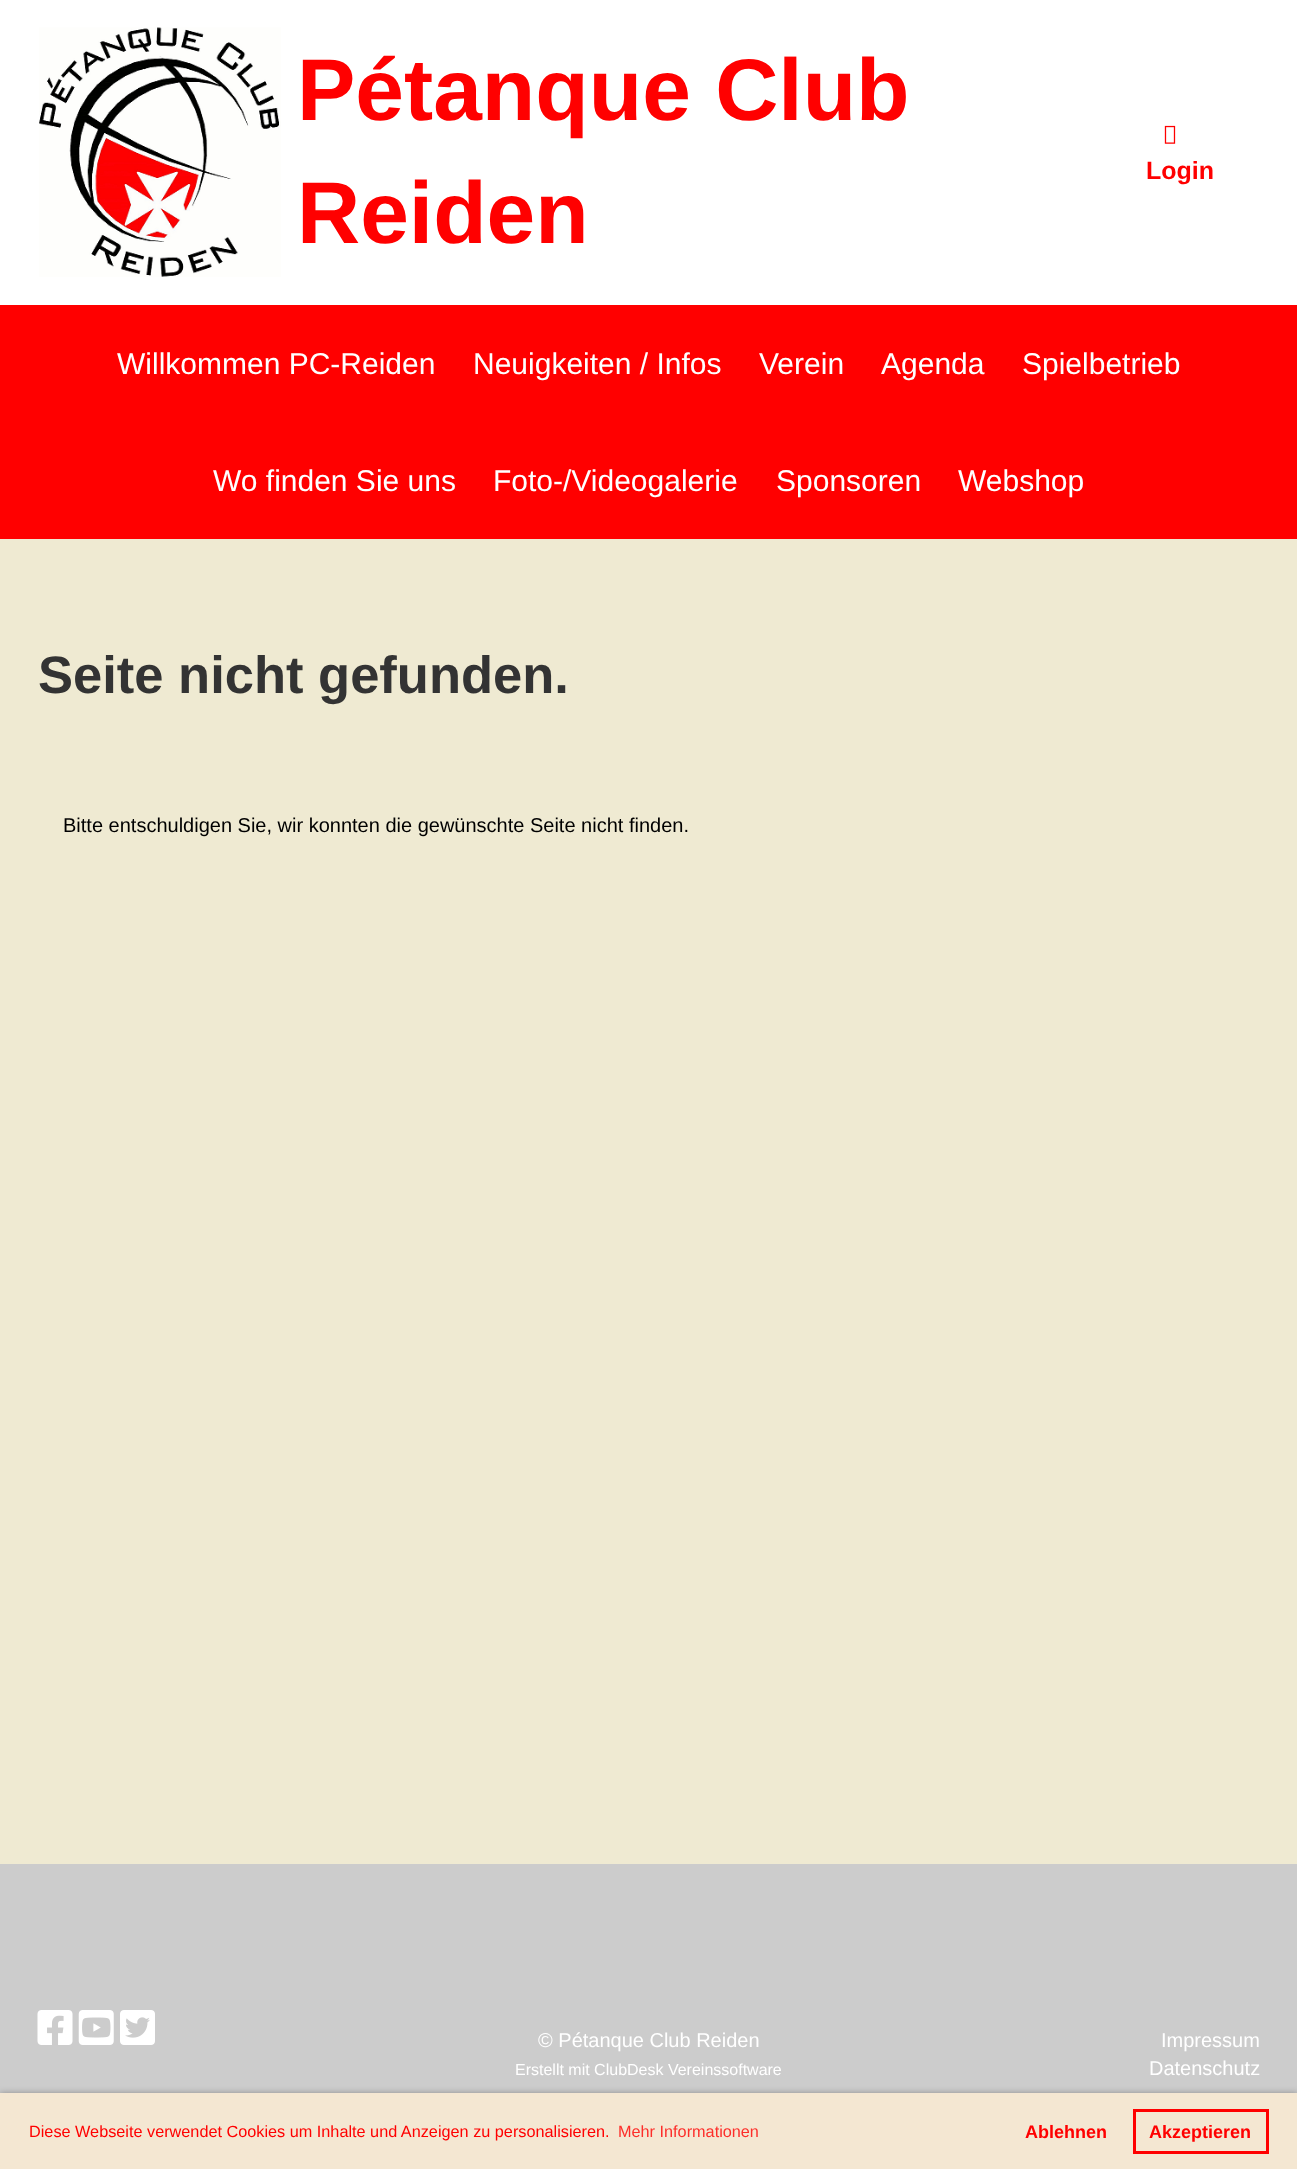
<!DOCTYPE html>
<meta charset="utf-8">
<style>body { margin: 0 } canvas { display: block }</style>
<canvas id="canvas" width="1297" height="2169"></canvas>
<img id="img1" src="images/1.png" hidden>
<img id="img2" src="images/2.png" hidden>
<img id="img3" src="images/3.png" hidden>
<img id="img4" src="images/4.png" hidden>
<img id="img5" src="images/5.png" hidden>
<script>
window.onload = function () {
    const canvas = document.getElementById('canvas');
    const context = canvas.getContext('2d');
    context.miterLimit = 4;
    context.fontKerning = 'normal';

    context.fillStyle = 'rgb(255, 255, 255)';
    context.fillRect(0, 0, 1297, 2169);
    context.drawImage(document.getElementById('img1'), 39, 27, 242, 250);
    context.drawImage(document.getElementById('img2'), 1164, 125, 12, 19);
    context.fillStyle = 'rgb(255, 0, 0)';
    context.fillRect(0, 305, 1297, 234);
    context.fillStyle = 'rgb(239, 234, 210)';
    context.fillRect(0, 539, 1297, 1325);
    context.fillStyle = 'rgb(204, 204, 204)';
    context.fillRect(0, 1864, 1297, 229);
    context.drawImage(document.getElementById('img3'), 37, 2010, 36, 35);
    context.drawImage(document.getElementById('img4'), 78, 2010, 36, 35);
    context.drawImage(document.getElementById('img5'), 120, 2010, 35, 35);
    context.fillStyle = 'rgba(0, 0, 0, 0.3)';
    context.filter = 'blur(3px)';
    context.beginPath();
    context.rect(0, 2093, 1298, 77);
    context.fill();
    context.filter = 'none';
    context.fillStyle = 'rgb(244, 231, 210)';
    context.fillRect(0, 2093, 1297, 76);
    context.strokeStyle = 'rgb(255, 0, 0)';
    context.lineWidth = 3;
    context.strokeRect(1134.5, 2110.5, 133, 42);
    context.font = 'bold 87.5px Liberation Sans';
    context.fillStyle = 'rgb(255, 0, 0)';
    context.fillText('Pétanque Club', 297, 120);
    context.fillText('Reiden', 297, 243);
    context.font = 'bold 25px Liberation Sans';
    context.fillText('Login', 1146, 179);
    context.font = '30px Liberation Sans';
    context.fillStyle = 'rgb(255, 255, 255)';
    context.fillText('Willkommen PC-Reiden', 117, 374);
    context.fillText('Neuigkeiten / Infos', 473, 374);
    context.fillText('Verein', 759, 374);
    context.fillText('Agenda', 881, 374);
    context.fillText('Spielbetrieb', 1022, 374);
    context.fillText('Wo finden Sie uns', 213, 491);
    context.fillText('Foto-/Videogalerie', 493, 491);
    context.fillText('Sponsoren', 776, 491);
    context.fillText('Webshop', 958, 491);
    context.font = 'bold 52.5px Liberation Sans';
    context.fillStyle = 'rgb(51, 51, 51)';
    context.fillText('Seite nicht gefunden.', 38, 693);
    context.font = '20px Liberation Sans';
    context.fillStyle = 'rgb(0, 0, 0)';
    context.fillText('Bitte entschuldigen Sie, wir konnten die gewünschte Seite nicht finden.', 63, 832);
    context.fillStyle = 'rgb(255, 255, 255)';
    context.fillText('© Pétanque Club Reiden', 538, 2047);
    context.font = '16px Liberation Sans';
    context.fillText('Erstellt mit ClubDesk Vereinssoftware', 515, 2075);
    context.font = '20px Liberation Sans';
    context.fillText('Impressum', 1161, 2047);
    context.fillText('Datenschutz', 1149, 2075);
    context.font = '16.25px Liberation Sans';
    context.fillStyle = 'rgb(255, 0, 0)';
    context.fillText('Diese Webseite verwendet Cookies um Inhalte und Anzeigen zu personalisieren.', 29, 2137);
    context.fillStyle = 'rgb(253, 46, 42)';
    context.fillText('Mehr Informationen', 618, 2137);
    context.font = 'bold 18px Liberation Sans';
    context.fillStyle = 'rgb(255, 0, 0)';
    context.fillText('Ablehnen', 1025, 2138);
    context.fillText('Akzeptieren', 1149, 2138);
};
</script>
